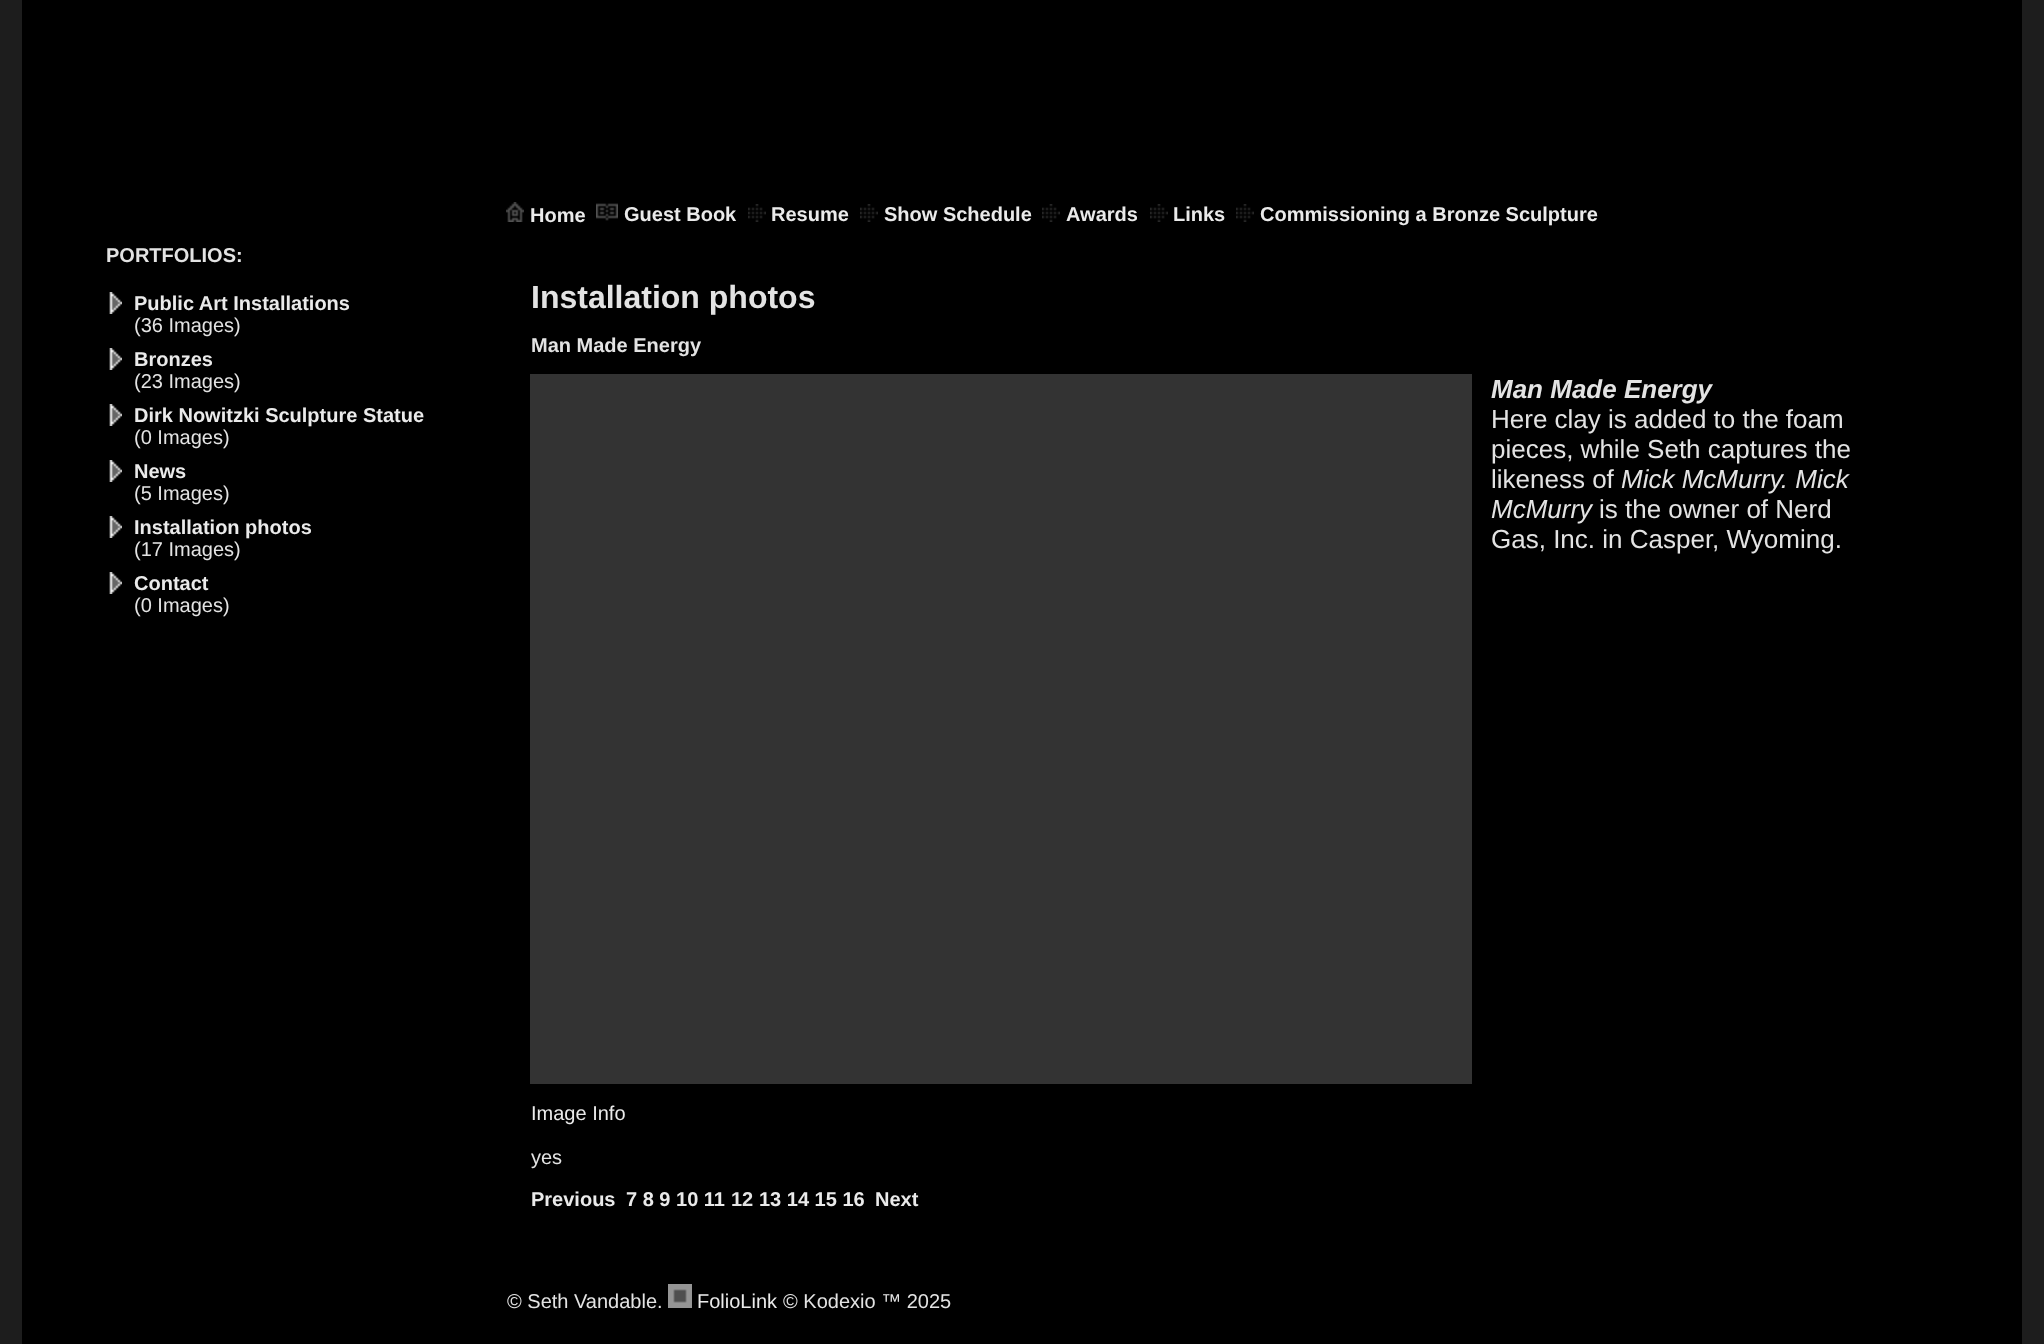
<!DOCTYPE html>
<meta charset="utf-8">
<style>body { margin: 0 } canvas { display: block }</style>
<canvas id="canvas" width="2044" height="1344"></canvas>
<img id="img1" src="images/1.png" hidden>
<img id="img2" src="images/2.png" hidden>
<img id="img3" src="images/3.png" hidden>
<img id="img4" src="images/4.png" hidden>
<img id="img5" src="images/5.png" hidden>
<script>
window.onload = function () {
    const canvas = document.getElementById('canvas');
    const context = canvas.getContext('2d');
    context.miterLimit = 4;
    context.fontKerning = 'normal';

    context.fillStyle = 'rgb(29, 29, 29)';
    context.fillRect(0, 0, 2044, 1344);
    context.fillStyle = 'rgb(0, 0, 0)';
    context.fillRect(22, 0, 2000, 1344);
    context.drawImage(document.getElementById('img1'), 506, 202, 18, 20);
    context.drawImage(document.getElementById('img2'), 596, 203, 22, 18);
    context.drawImage(document.getElementById('img3'), 748, 204, 18, 18);
    context.drawImage(document.getElementById('img3'), 860, 204, 18, 18);
    context.drawImage(document.getElementById('img3'), 1042, 204, 18, 18);
    context.drawImage(document.getElementById('img3'), 1150, 204, 18, 18);
    context.drawImage(document.getElementById('img3'), 1236, 204, 18, 18);
    context.drawImage(document.getElementById('img4'), 109, 292, 13, 22);
    context.drawImage(document.getElementById('img4'), 109, 348, 13, 22);
    context.drawImage(document.getElementById('img4'), 109, 404, 13, 22);
    context.drawImage(document.getElementById('img4'), 109, 460, 13, 22);
    context.drawImage(document.getElementById('img4'), 109, 516, 13, 22);
    context.drawImage(document.getElementById('img4'), 109, 572, 13, 22);
    context.fillStyle = 'rgb(51, 51, 51)';
    context.fillRect(530, 374, 942, 710);
    context.drawImage(document.getElementById('img5'), 668, 1284, 24, 24);
    context.font = 'bold 20px Liberation Sans';
    context.fillStyle = 'rgb(234, 234, 234)';
    context.fillText('Home', 530, 222);
    context.fillText('Guest Book', 624, 221);
    context.fillText('Resume', 771, 221);
    context.fillText('Show Schedule', 884, 221);
    context.fillText('Awards', 1066, 221);
    context.fillText('Links', 1173, 221);
    context.fillText('Commissioning a Bronze Sculpture', 1260, 221);
    context.fillStyle = 'rgb(227, 227, 227)';
    context.fillText('PORTFOLIOS:', 106, 262);
    context.fillStyle = 'rgb(234, 234, 234)';
    context.fillText('Public Art Installations', 134, 310);
    context.font = '20px Liberation Sans';
    context.fillStyle = 'rgb(227, 227, 227)';
    context.fillText('(36 Images)', 134, 332);
    context.font = 'bold 20px Liberation Sans';
    context.fillStyle = 'rgb(234, 234, 234)';
    context.fillText('Bronzes', 134, 366);
    context.font = '20px Liberation Sans';
    context.fillStyle = 'rgb(227, 227, 227)';
    context.fillText('(23 Images)', 134, 388);
    context.font = 'bold 20px Liberation Sans';
    context.fillStyle = 'rgb(234, 234, 234)';
    context.fillText('Dirk Nowitzki Sculpture Statue', 134, 422);
    context.font = '20px Liberation Sans';
    context.fillStyle = 'rgb(227, 227, 227)';
    context.fillText('(0 Images)', 134, 444);
    context.font = 'bold 20px Liberation Sans';
    context.fillStyle = 'rgb(234, 234, 234)';
    context.fillText('News', 134, 478);
    context.font = '20px Liberation Sans';
    context.fillStyle = 'rgb(227, 227, 227)';
    context.fillText('(5 Images)', 134, 500);
    context.font = 'bold 20px Liberation Sans';
    context.fillStyle = 'rgb(234, 234, 234)';
    context.fillText('Installation photos', 134, 534);
    context.font = '20px Liberation Sans';
    context.fillStyle = 'rgb(227, 227, 227)';
    context.fillText('(17 Images)', 134, 556);
    context.font = 'bold 20px Liberation Sans';
    context.fillStyle = 'rgb(234, 234, 234)';
    context.fillText('Contact', 134, 590);
    context.font = '20px Liberation Sans';
    context.fillStyle = 'rgb(227, 227, 227)';
    context.fillText('(0 Images)', 134, 612);
    context.font = 'bold 32px Liberation Sans';
    context.fillText('Installation photos', 531, 308);
    context.font = 'bold 20px Liberation Sans';
    context.fillText('Man Made Energy', 531, 352);
    context.font = 'italic bold 26px Liberation Sans';
    context.fillText('Man Made Energy', 1491, 398);
    context.font = '26px Liberation Sans';
    context.fillText('Here clay is added to the foam', 1491, 428);
    context.fillText('pieces, while Seth captures the', 1491, 458);
    context.fillText('likeness of', 1491, 488);
    context.font = 'italic 26px Liberation Sans';
    context.fillText('Mick McMurry. Mick', 1621, 488);
    context.fillText('McMurry', 1491, 518);
    context.font = '26px Liberation Sans';
    context.fillText('is the owner of Nerd', 1599, 518);
    context.fillText('Gas, Inc. in Casper, Wyoming.', 1491, 548);
    context.font = '20px Liberation Sans';
    context.fillStyle = 'rgb(234, 234, 234)';
    context.fillText('Image Info', 531, 1120);
    context.fillStyle = 'rgb(227, 227, 227)';
    context.fillText('yes', 531, 1164);
    context.font = 'bold 20px Liberation Sans';
    context.fillStyle = 'rgb(234, 234, 234)';
    context.fillText('Previous', 531, 1206);
    context.fillText('7 8 9 10 11', 626, 1206);
    context.fillStyle = 'rgb(227, 227, 227)';
    context.fillText('12', 731, 1206);
    context.fillStyle = 'rgb(234, 234, 234)';
    context.fillText('13 14 15 16', 759, 1206);
    context.fillText('Next', 875, 1206);
    context.font = '20px Liberation Sans';
    context.fillStyle = 'rgb(227, 227, 227)';
    context.fillText('© Seth Vandable.', 507, 1308);
    context.fillStyle = 'rgb(234, 234, 234)';
    context.fillText('FolioLink', 697, 1308);
    context.fillStyle = 'rgb(227, 227, 227)';
    context.fillText('© Kodexio ™ 2025', 783, 1308);
};
</script>
